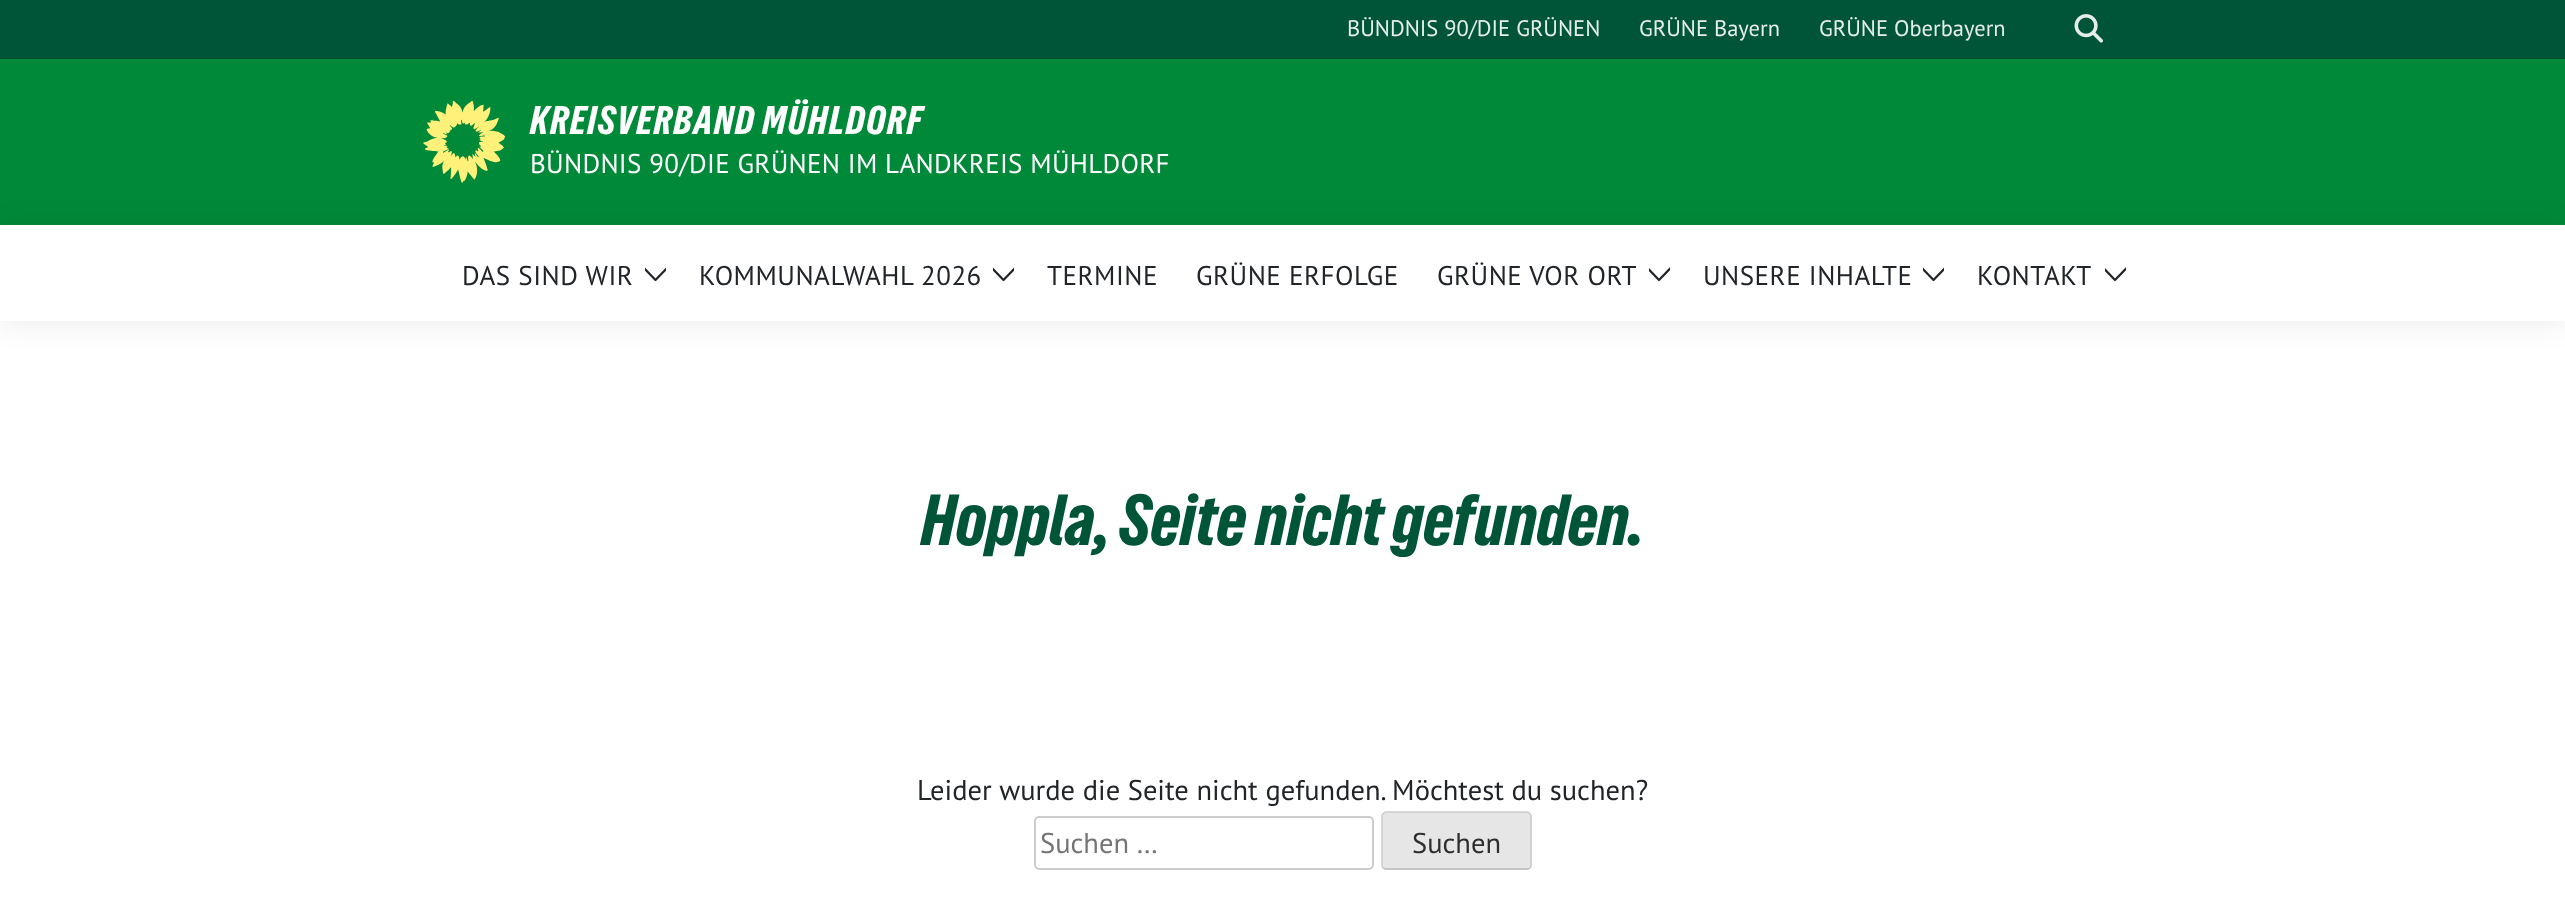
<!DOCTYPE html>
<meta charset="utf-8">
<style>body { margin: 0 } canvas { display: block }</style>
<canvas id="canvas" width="2565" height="908"></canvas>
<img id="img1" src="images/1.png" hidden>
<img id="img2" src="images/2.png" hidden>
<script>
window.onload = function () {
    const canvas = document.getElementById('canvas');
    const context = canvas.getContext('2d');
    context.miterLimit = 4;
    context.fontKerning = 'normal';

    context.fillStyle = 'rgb(255, 255, 255)';
    context.fillRect(0, 0, 2565, 908);
    context.fillStyle = 'rgb(0, 84, 55)';
    context.fillRect(0, 0, 2565, 59);
    context.drawImage(document.getElementById('img1'), 2074, 14, 29, 29);
    context.fillStyle = 'rgb(0, 137, 57)';
    context.fillRect(0, 59, 2565, 166);
    context.drawImage(document.getElementById('img2'), 423, 101, 83, 82);
    context.save();
    context.beginPath();
    context.moveTo(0, 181);
    context.lineTo(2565, 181);
    context.lineTo(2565, 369);
    context.lineTo(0, 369);
    context.closePath();
    context.moveTo(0, 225);
    context.lineTo(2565, 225);
    context.lineTo(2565, 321);
    context.lineTo(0, 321);
    context.closePath();
    context.clip('evenodd');
    context.fillStyle = 'rgba(0, 0, 0, 0.08)';
    context.filter = 'blur(15px)';
    context.beginPath();
    context.rect(0, 227, 2565, 96);
    context.fill();
    context.filter = 'none';
    context.restore();
    context.save();
    context.beginPath();
    context.rect(645, 255, 21, 36);
    context.clip();
    context.beginPath();
    context.moveTo(642, 266);
    context.lineTo(655.5, 280);
    context.lineTo(669, 266);
    context.strokeStyle = 'rgb(33, 37, 41)';
    context.lineWidth = 2.2;
    context.lineCap = 'round';
    context.lineJoin = 'round';
    context.stroke();
    context.restore();
    context.save();
    context.beginPath();
    context.rect(993, 255, 21, 36);
    context.clip();
    context.beginPath();
    context.moveTo(990, 266);
    context.lineTo(1003.5, 280);
    context.lineTo(1017, 266);
    context.strokeStyle = 'rgb(33, 37, 41)';
    context.lineWidth = 2.2;
    context.lineCap = 'round';
    context.lineJoin = 'round';
    context.stroke();
    context.restore();
    context.save();
    context.beginPath();
    context.rect(1649, 255, 21, 36);
    context.clip();
    context.beginPath();
    context.moveTo(1645.5, 266);
    context.lineTo(1659, 280);
    context.lineTo(1672.5, 266);
    context.strokeStyle = 'rgb(33, 37, 41)';
    context.lineWidth = 2.2;
    context.lineCap = 'round';
    context.lineJoin = 'round';
    context.stroke();
    context.restore();
    context.save();
    context.beginPath();
    context.rect(1923, 255, 21, 36);
    context.clip();
    context.beginPath();
    context.moveTo(1920, 266);
    context.lineTo(1933.5, 280);
    context.lineTo(1947, 266);
    context.strokeStyle = 'rgb(33, 37, 41)';
    context.lineWidth = 2.2;
    context.lineCap = 'round';
    context.lineJoin = 'round';
    context.stroke();
    context.restore();
    context.save();
    context.beginPath();
    context.rect(2105, 255, 21, 36);
    context.clip();
    context.beginPath();
    context.moveTo(2101.5, 266);
    context.lineTo(2115, 280);
    context.lineTo(2128.5, 266);
    context.strokeStyle = 'rgb(33, 37, 41)';
    context.lineWidth = 2.2;
    context.lineCap = 'round';
    context.lineJoin = 'round';
    context.stroke();
    context.restore();
    context.beginPath();
    context.roundRect(1035, 817, 338, 52, 4);
    context.strokeStyle = 'rgb(204, 204, 204)';
    context.lineWidth = 2;
    context.stroke();
    context.fillStyle = 'rgb(230, 230, 230)';
    context.beginPath();
    context.roundRect(1382, 812, 150, 58, 5);
    context.fill();
    context.beginPath();
    context.moveTo(1529.5, 868);
    context.bezierCurveTo(1529, 869, 1528, 869, 1527, 869);
    context.lineTo(1386, 869);
    context.bezierCurveTo(1385, 869, 1384, 869, 1383.5, 868);
    context.strokeStyle = 'rgb(187, 187, 187)';
    context.lineWidth = 1.5;
    context.stroke();
    context.beginPath();
    context.moveTo(1383.5, 868);
    context.bezierCurveTo(1382.5, 867.5, 1382, 866.5, 1382, 865.5);
    context.lineTo(1382, 816);
    context.bezierCurveTo(1382, 815, 1382.5, 814, 1383.5, 813.5);
    context.bezierCurveTo(1384, 812.5, 1385, 812, 1386, 812);
    context.lineTo(1527, 812);
    context.bezierCurveTo(1528, 812, 1529, 812.5, 1529.5, 813.5);
    context.bezierCurveTo(1530.5, 814, 1531, 815, 1531, 816);
    context.lineTo(1531, 865.5);
    context.bezierCurveTo(1531, 866.5, 1530.5, 867.5, 1529.5, 868);
    context.strokeStyle = 'rgb(204, 204, 204)';
    context.stroke();
    context.font = '22.5px PT Sans';
    context.fillStyle = 'rgb(230, 238, 235)';
    context.fillText('BÜNDNIS 90/DIE GRÜNEN', 1347, 36);
    context.fillText('GRÜNE Bayern', 1639, 36);
    context.fillText('GRÜNE Oberbayern', 1819, 36);
    context.letterSpacing = '1.5px';
    context.font = '37.5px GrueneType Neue';
    context.fillStyle = 'rgb(255, 255, 255)';
    context.fillText('KREISVERBAND MÜHLDORF', 530, 134);
    context.letterSpacing = '0.3px';
    context.font = '27px PT Sans';
    context.fillText('BÜNDNIS 90/DIE GRÜNEN IM LANDKREIS MÜHLDORF', 530, 173);
    context.letterSpacing = '0.5px';
    context.fillStyle = 'rgb(33, 37, 41)';
    context.fillText('DAS SIND WIR', 462, 285);
    context.fillText('KOMMUNALWAHL 2026', 699, 285);
    context.fillText('TERMINE', 1047, 285);
    context.fillText('GRÜNE ERFOLGE', 1196, 285);
    context.fillText('GRÜNE VOR ORT', 1437, 285);
    context.fillText('UNSERE INHALTE', 1703, 285);
    context.fillText('KONTAKT', 1977, 285);
    context.letterSpacing = '0px';
    context.font = '67.5px GrueneType Neue';
    context.fillStyle = 'rgb(0, 84, 55)';
    context.fillText('Hoppla, Seite nicht gefunden.', 921, 545);
    context.font = '28.5px PT Sans';
    context.fillStyle = 'rgb(33, 37, 41)';
    context.fillText('Leider wurde die Seite nicht gefunden. Möchtest du suchen?', 917, 800);
    context.fillStyle = 'rgb(117, 117, 117)';
    context.fillText('Suchen …', 1040, 853);
    context.fillStyle = 'rgb(46, 46, 46)';
    context.fillText('Suchen', 1412, 853);
};
</script>
